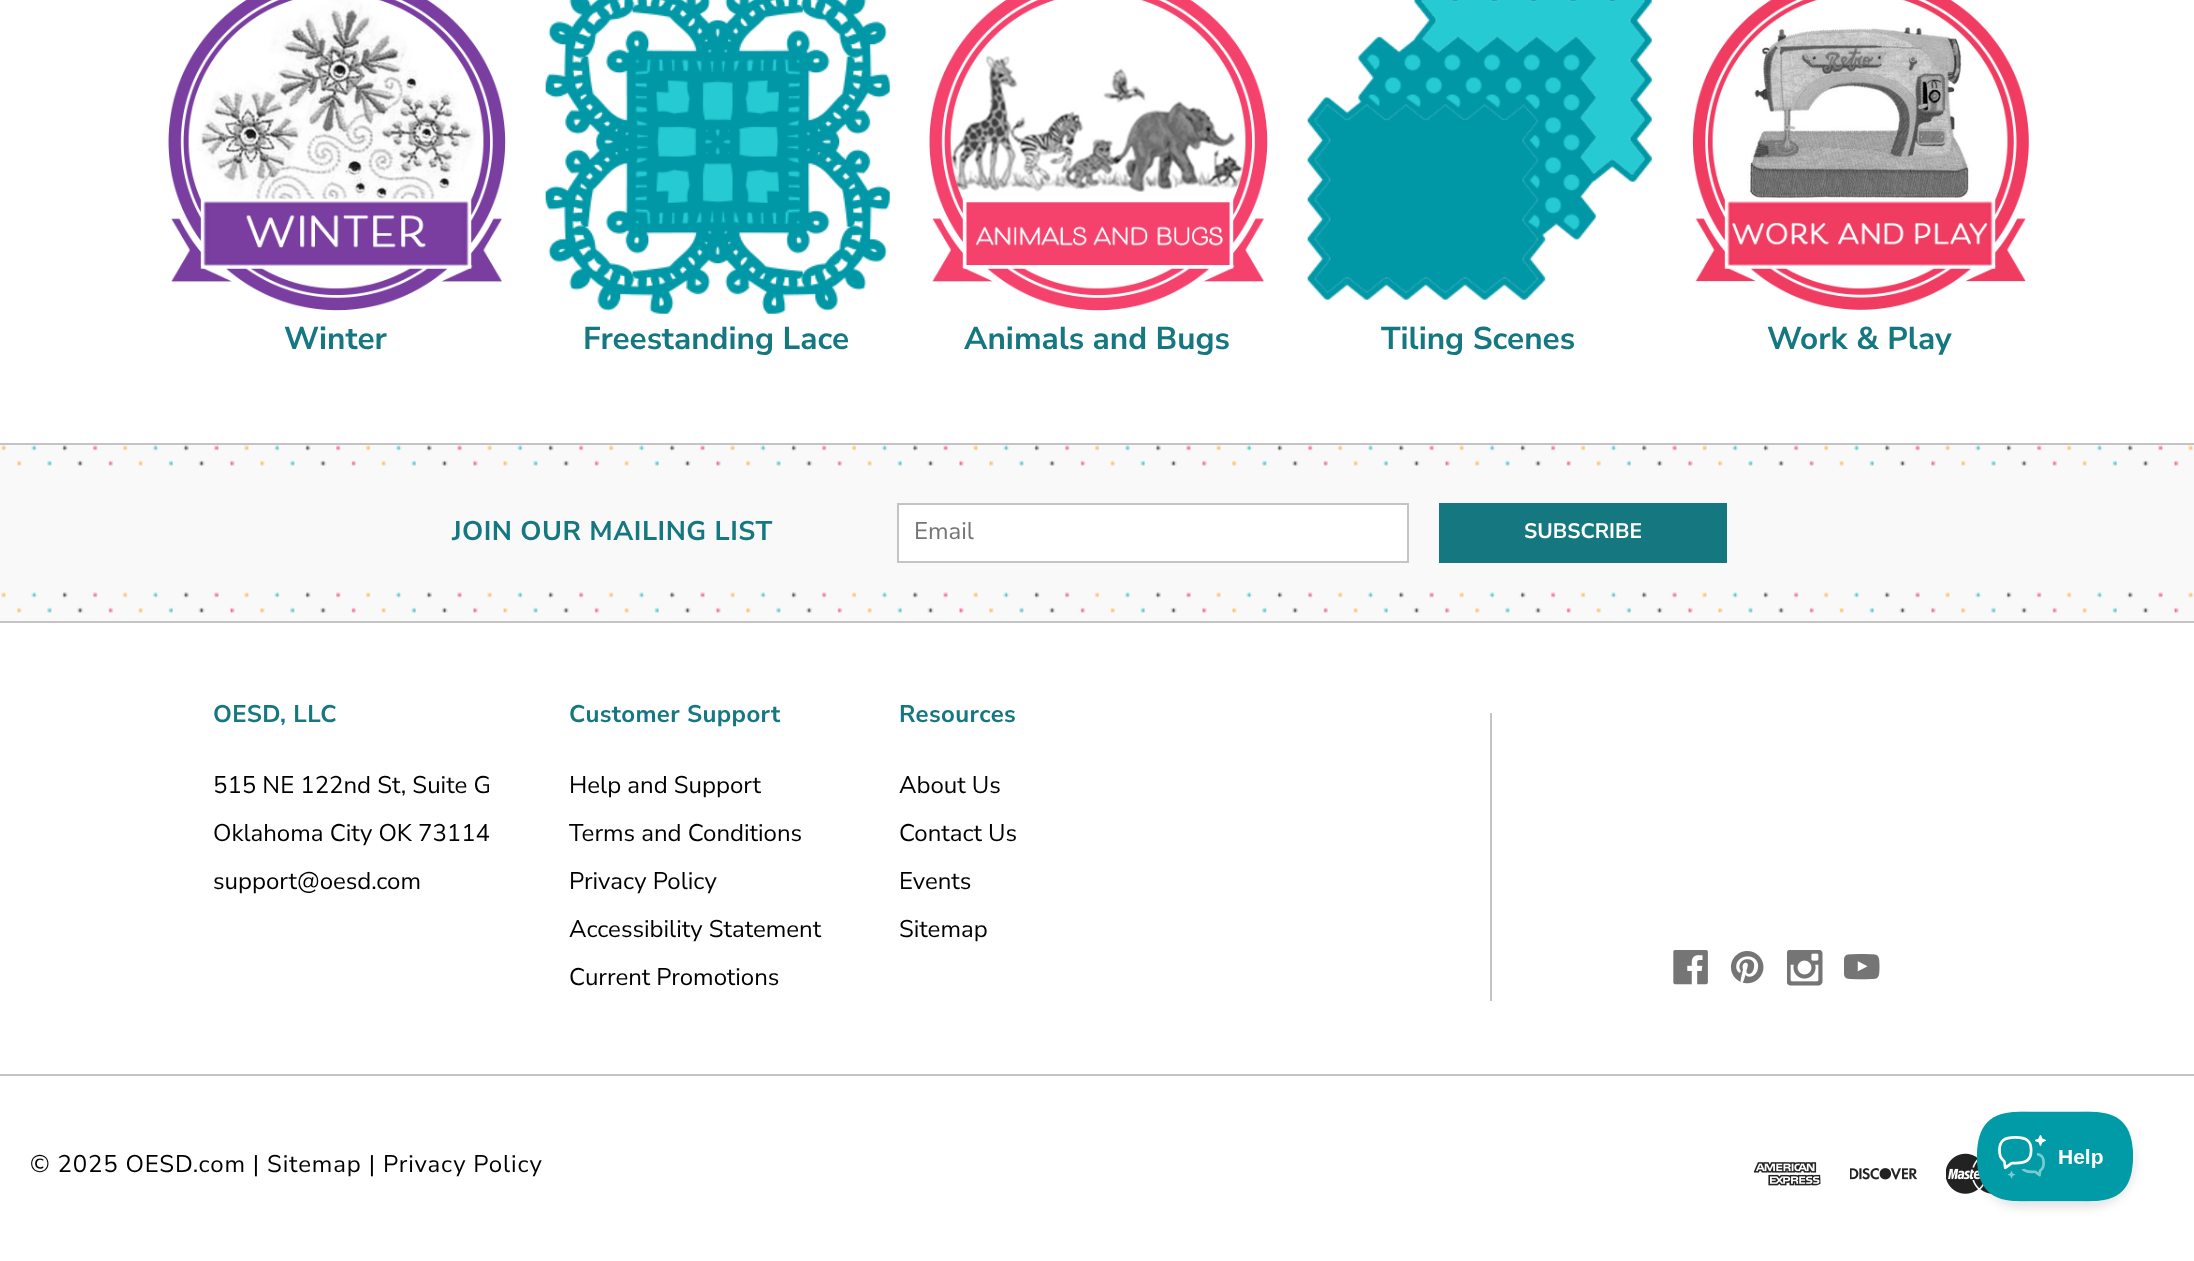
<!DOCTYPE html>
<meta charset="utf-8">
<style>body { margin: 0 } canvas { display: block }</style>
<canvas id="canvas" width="2194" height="1261"></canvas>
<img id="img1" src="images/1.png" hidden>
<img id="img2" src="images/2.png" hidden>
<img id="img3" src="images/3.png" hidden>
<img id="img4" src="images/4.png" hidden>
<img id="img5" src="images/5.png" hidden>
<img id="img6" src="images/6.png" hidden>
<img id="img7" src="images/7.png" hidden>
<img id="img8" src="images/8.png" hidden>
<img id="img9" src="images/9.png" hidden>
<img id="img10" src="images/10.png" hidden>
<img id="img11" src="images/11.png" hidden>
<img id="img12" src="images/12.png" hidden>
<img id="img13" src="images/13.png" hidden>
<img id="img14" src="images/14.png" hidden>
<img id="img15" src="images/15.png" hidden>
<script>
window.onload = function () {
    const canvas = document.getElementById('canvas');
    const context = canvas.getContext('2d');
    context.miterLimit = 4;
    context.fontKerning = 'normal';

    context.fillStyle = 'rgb(255, 255, 255)';
    context.fillRect(0, 0, 2194, 1261);
    context.drawImage(document.getElementById('img1'), 168, 0, 338, 311);
    context.drawImage(document.getElementById('img2'), 545, 0, 345, 314);
    context.drawImage(document.getElementById('img3'), 929, 0, 339, 311);
    context.drawImage(document.getElementById('img4'), 1307, 0, 345, 300);
    context.drawImage(document.getElementById('img5'), 1692, 0, 337, 310);
    context.fillStyle = 'rgb(249, 249, 249)';
    context.fillRect(0, 445, 2194, 176);
    context.fillStyle = 'rgb(196, 196, 196)';
    context.fillRect(0, 443, 2194, 2);
    context.fillRect(0, 621, 2194, 2);
    context.drawImage(document.getElementById('img6'), 1, 445, 2192, 21);
    context.fillStyle = 'rgb(255, 255, 255)';
    context.beginPath();
    context.rect(898, 504, 510, 58);
    context.fill();
    context.strokeStyle = 'rgb(196, 196, 196)';
    context.lineWidth = 2;
    context.stroke();
    context.fillStyle = 'rgb(21, 119, 128)';
    context.fillRect(1439, 503, 288, 60);
    context.drawImage(document.getElementById('img7'), 1, 592, 2192, 21);
    context.fillStyle = 'rgb(196, 196, 196)';
    context.fillRect(1490, 713, 2, 288);
    context.drawImage(document.getElementById('img8'), 1673, 950, 35, 35);
    context.drawImage(document.getElementById('img9'), 1730, 951, 34, 33);
    context.drawImage(document.getElementById('img10'), 1787, 950, 36, 36);
    context.drawImage(document.getElementById('img11'), 1844, 954, 36, 26);
    context.fillRect(0, 1074, 2194, 2);
    context.drawImage(document.getElementById('img12'), 1754, 1162, 67, 24);
    context.drawImage(document.getElementById('img13'), 1850, 1168, 67, 12);
    context.drawImage(document.getElementById('img14'), 1946, 1153, 45, 41);
    context.save();
    context.beginPath();
    context.moveTo(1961, 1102);
    context.lineTo(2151, 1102);
    context.lineTo(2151, 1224);
    context.lineTo(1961, 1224);
    context.closePath();
    context.moveTo(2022, 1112);
    context.lineTo(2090, 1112);
    context.bezierCurveTo(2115, 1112, 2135, 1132, 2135, 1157);
    context.bezierCurveTo(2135, 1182, 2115, 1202, 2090, 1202);
    context.lineTo(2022, 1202);
    context.bezierCurveTo(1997, 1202, 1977, 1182, 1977, 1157);
    context.bezierCurveTo(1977, 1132, 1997, 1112, 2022, 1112);
    context.closePath();
    context.clip('evenodd');
    context.fillStyle = 'rgba(0, 0, 0, 0.1)';
    context.filter = 'blur(5px)';
    context.beginPath();
    context.roundRect(1977, 1118, 158, 90, 45);
    context.fill();
    context.filter = 'none';
    context.restore();
    context.drawImage(document.getElementById('img15'), 1977, 1111, 156, 91);
    context.font = 'bold 31.5px Nunito Sans';
    context.fillStyle = 'rgb(21, 119, 128)';
    context.fillText('Winter', 284, 349);
    context.fillText('Freestanding Lace', 583, 349);
    context.fillText('Animals and Bugs', 964, 349);
    context.fillText('Tiling Scenes', 1381, 349);
    context.fillText('Work & Play', 1767, 349);
    context.letterSpacing = '0.5px';
    context.font = 'bold 27px Nunito Sans';
    context.fillText('JOIN OUR MAILING LIST', 452, 540);
    context.letterSpacing = '0px';
    context.font = '24px Nunito Sans';
    context.fillStyle = 'rgb(117, 117, 117)';
    context.fillText('Email', 914, 539);
    context.font = 'bold 21px Nunito Sans';
    context.fillStyle = 'rgb(255, 255, 255)';
    context.fillText('SUBSCRIBE', 1524, 538);
    context.letterSpacing = '0.4px';
    context.font = 'bold 24px Nunito Sans';
    context.fillStyle = 'rgb(21, 119, 128)';
    context.fillText('OESD, LLC', 213, 722);
    context.letterSpacing = '0px';
    context.font = '24px Nunito Sans';
    context.fillStyle = 'rgb(0, 0, 0)';
    context.fillText('515 NE 122nd St, Suite G', 213, 793);
    context.fillText('Oklahoma City OK 73114', 213, 841);
    context.fillText('support@oesd.com', 213, 889);
    context.letterSpacing = '0.4px';
    context.font = 'bold 24px Nunito Sans';
    context.fillStyle = 'rgb(21, 119, 128)';
    context.fillText('Customer Support', 569, 722);
    context.letterSpacing = '0px';
    context.font = '24px Nunito Sans';
    context.fillStyle = 'rgb(0, 0, 0)';
    context.fillText('Help and Support', 569, 793);
    context.fillText('Terms and Conditions', 569, 841);
    context.fillText('Privacy Policy', 569, 889);
    context.fillText('Accessibility Statement', 569, 937);
    context.fillText('Current Promotions', 569, 985);
    context.letterSpacing = '0.4px';
    context.font = 'bold 24px Nunito Sans';
    context.fillStyle = 'rgb(21, 119, 128)';
    context.fillText('Resources', 899, 722);
    context.letterSpacing = '0px';
    context.font = '24px Nunito Sans';
    context.fillStyle = 'rgb(0, 0, 0)';
    context.fillText('About Us', 899, 793);
    context.fillText('Contact Us', 899, 841);
    context.fillText('Events', 899, 889);
    context.fillText('Sitemap', 899, 937);
    context.letterSpacing = '0.85px';
    context.fillText('© 2025 OESD.com | Sitemap | Privacy Policy', 30, 1172);
};
</script>
